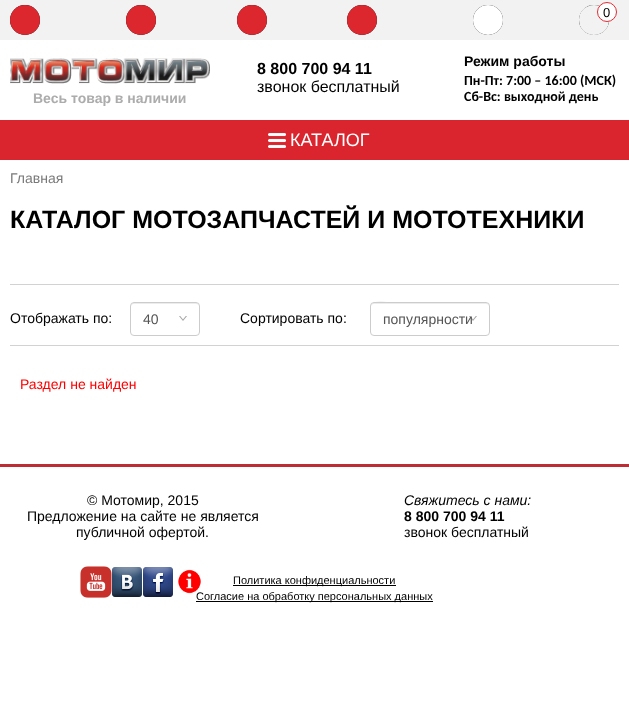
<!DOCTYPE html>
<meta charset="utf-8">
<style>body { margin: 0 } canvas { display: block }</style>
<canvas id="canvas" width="629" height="704"></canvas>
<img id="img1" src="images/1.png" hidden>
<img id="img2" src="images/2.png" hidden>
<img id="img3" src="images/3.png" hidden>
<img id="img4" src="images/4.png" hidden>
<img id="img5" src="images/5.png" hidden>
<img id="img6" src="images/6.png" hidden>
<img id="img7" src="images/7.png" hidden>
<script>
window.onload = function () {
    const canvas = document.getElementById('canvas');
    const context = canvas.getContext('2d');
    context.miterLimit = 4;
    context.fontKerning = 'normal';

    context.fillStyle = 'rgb(255, 255, 255)';
    context.fillRect(0, 0, 629, 704);
    context.fillStyle = 'rgb(242, 242, 242)';
    context.fillRect(0, 0, 629, 40);
    context.fillStyle = 'rgb(0, 0, 0)';
    context.filter = 'blur(0.5px)';
    context.beginPath();
    context.roundRect(10, 5, 30, 30, 15);
    context.fill();
    context.filter = 'none';
    context.fillStyle = 'rgb(221, 39, 47)';
    context.beginPath();
    context.arc(25, 20, 15, 0, 2 * Math.PI);
    context.fill();
    context.fillStyle = 'rgb(0, 0, 0)';
    context.filter = 'blur(0.5px)';
    context.beginPath();
    context.roundRect(126, 5, 30, 30, 15);
    context.fill();
    context.filter = 'none';
    context.fillStyle = 'rgb(221, 39, 47)';
    context.beginPath();
    context.arc(141, 20, 15, 0, 2 * Math.PI);
    context.fill();
    context.fillStyle = 'rgb(0, 0, 0)';
    context.filter = 'blur(0.5px)';
    context.beginPath();
    context.roundRect(237, 5, 30, 30, 15);
    context.fill();
    context.filter = 'none';
    context.fillStyle = 'rgb(221, 39, 47)';
    context.beginPath();
    context.arc(252, 20, 15, 0, 2 * Math.PI);
    context.fill();
    context.fillStyle = 'rgb(0, 0, 0)';
    context.filter = 'blur(0.5px)';
    context.beginPath();
    context.roundRect(347, 5, 30, 30, 15);
    context.fill();
    context.filter = 'none';
    context.fillStyle = 'rgb(221, 39, 47)';
    context.beginPath();
    context.arc(362, 20, 15, 0, 2 * Math.PI);
    context.fill();
    context.fillStyle = 'rgb(0, 0, 0)';
    context.filter = 'blur(0.5px)';
    context.beginPath();
    context.roundRect(473, 5, 30, 30, 15);
    context.fill();
    context.filter = 'none';
    context.fillStyle = 'rgb(255, 255, 255)';
    context.beginPath();
    context.arc(488, 20, 15, 0, 2 * Math.PI);
    context.fill();
    context.save();
    context.beginPath();
    context.moveTo(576, 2);
    context.lineTo(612, 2);
    context.lineTo(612, 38);
    context.lineTo(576, 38);
    context.closePath();
    context.moveTo(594, 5);
    context.bezierCurveTo(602.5, 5, 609, 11.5, 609, 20);
    context.bezierCurveTo(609, 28.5, 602.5, 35, 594, 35);
    context.bezierCurveTo(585.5, 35, 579, 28.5, 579, 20);
    context.bezierCurveTo(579, 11.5, 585.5, 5, 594, 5);
    context.closePath();
    context.clip('evenodd');
    context.fillStyle = 'rgb(0, 0, 0)';
    context.filter = 'blur(0.5px)';
    context.beginPath();
    context.roundRect(579, 5, 30, 30, 15);
    context.fill();
    context.filter = 'none';
    context.restore();
    context.beginPath();
    context.arc(607, 12, 9.5, 0, 2 * Math.PI);
    context.fill();
    context.strokeStyle = 'rgb(225, 44, 53)';
    context.stroke();
    context.drawImage(document.getElementById('img1'), 10, 58, 200, 26);
    context.fillStyle = 'rgb(0, 0, 0)';
    context.filter = 'blur(0.5px)';
    context.beginPath();
    context.rect(0, 120, 629, 40);
    context.fill();
    context.filter = 'none';
    context.fillStyle = 'rgb(218, 37, 46)';
    context.fillRect(0, 120, 629, 40);
    context.drawImage(document.getElementById('img2'), 268, 133, 18, 15);
    context.fillStyle = 'rgb(209, 210, 211)';
    context.fillRect(10, 284, 609, 1);
    context.fillRect(10, 345, 609, 1);
    context.drawImage(document.getElementById('img3'), 179, 316, 8, 5);
    context.fillStyle = 'rgb(236, 236, 236)';
    context.beginPath();
    context.moveTo(134, 304);
    context.lineTo(196, 304);
    context.bezierCurveTo(198, 304, 199, 305, 199, 307);
    context.bezierCurveTo(199, 300, 190, 303, 186, 303);
    context.lineTo(144, 303);
    context.bezierCurveTo(140, 303, 131, 300, 131, 307);
    context.bezierCurveTo(131, 305, 132, 304, 134, 304);
    context.closePath();
    context.fill();
    context.beginPath();
    context.roundRect(130.5, 302.5, 69, 33, 3.5);
    context.strokeStyle = 'rgb(204, 204, 204)';
    context.stroke();
    context.drawImage(document.getElementById('img3'), 469, 316, 8, 5);
    context.beginPath();
    context.moveTo(374, 304);
    context.lineTo(486, 304);
    context.bezierCurveTo(488, 304, 489, 305, 489, 307);
    context.bezierCurveTo(489, 305, 488, 303, 486, 303);
    context.lineTo(393, 303);
    context.bezierCurveTo(391, 303, 371, 298, 371, 307);
    context.bezierCurveTo(371, 305, 372, 304, 374, 304);
    context.closePath();
    context.fill();
    context.beginPath();
    context.roundRect(370.5, 302.5, 119, 33, 3.5);
    context.stroke();
    context.fillStyle = 'rgb(191, 45, 52)';
    context.fillRect(0, 464, 629, 3);
    context.drawImage(document.getElementById('img4'), 80, 566, 32, 32);
    context.drawImage(document.getElementById('img5'), 112, 567, 30, 30);
    context.drawImage(document.getElementById('img6'), 143, 567, 30, 30);
    context.drawImage(document.getElementById('img7'), 178, 569, 23, 25);
    context.fillStyle = 'rgb(0, 0, 0)';
    context.fillRect(233, 585, 163, 1);
    context.fillRect(196, 601, 237, 1);
    context.font = '13px Liberation Sans';
    context.fillText('0', 603, 17);
    context.font = 'bold 16px Liberation Sans';
    context.fillText('8 800 700 94 11', 257, 74);
    context.font = '16px Liberation Sans';
    context.fillText('звонок бесплатный', 257, 92);
    context.font = 'bold 14px Liberation Sans';
    context.fillText('Режим работы', 464, 66);
    context.font = 'bold 14px Carlito';
    context.fillText('Пн-Пт: 7:00 – 16:00 (МСК)', 464, 85);
    context.fillText('Сб-Вс: выходной день', 464, 101);
    context.font = 'bold 14px Liberation Sans';
    context.fillStyle = 'rgb(172, 172, 172)';
    context.fillText('Весь товар в наличии', 33, 103);
    context.font = '18px Liberation Sans';
    context.fillStyle = 'rgb(255, 255, 255)';
    context.fillText('КАТАЛОГ', 290, 146);
    context.font = '14px Liberation Sans';
    context.fillStyle = 'rgb(121, 121, 121)';
    context.fillText('Главная', 10, 183);
    context.font = 'bold 25px Liberation Sans';
    context.fillStyle = 'rgb(0, 0, 0)';
    context.fillText('КАТАЛОГ МОТОЗАПЧАСТЕЙ И МОТОТЕХНИКИ', 10, 228);
    context.font = '14px Liberation Sans';
    context.fillText('Отображать по:', 10, 323);
    context.fillStyle = 'rgb(85, 85, 85)';
    context.fillText('40', 143, 324);
    context.fillStyle = 'rgb(0, 0, 0)';
    context.fillText('Сортировать по:', 240, 323);
    context.fillStyle = 'rgb(85, 85, 85)';
    context.fillText('популярности', 383, 324);
    context.fillStyle = 'rgb(255, 0, 0)';
    context.fillText('Раздел не найден', 20, 389);
    context.fillStyle = 'rgb(0, 0, 0)';
    context.fillText('© Мотомир, 2015', 87, 505);
    context.fillText('Предложение на сайте не является', 27, 521);
    context.fillText('публичной офертой.', 76, 537);
    context.font = 'italic 14px Liberation Sans';
    context.fillText('Свяжитесь с нами:', 404, 505);
    context.font = 'bold 14px Liberation Sans';
    context.fillText('8 800 700 94 11', 404, 521);
    context.font = '14px Liberation Sans';
    context.fillText('звонок бесплатный', 404, 537);
    context.font = '11px Liberation Sans';
    context.fillText('Политика конфиденциальности', 233, 584);
    context.fillText('Согласие на обработку персональных данных', 196, 600);
};
</script>
